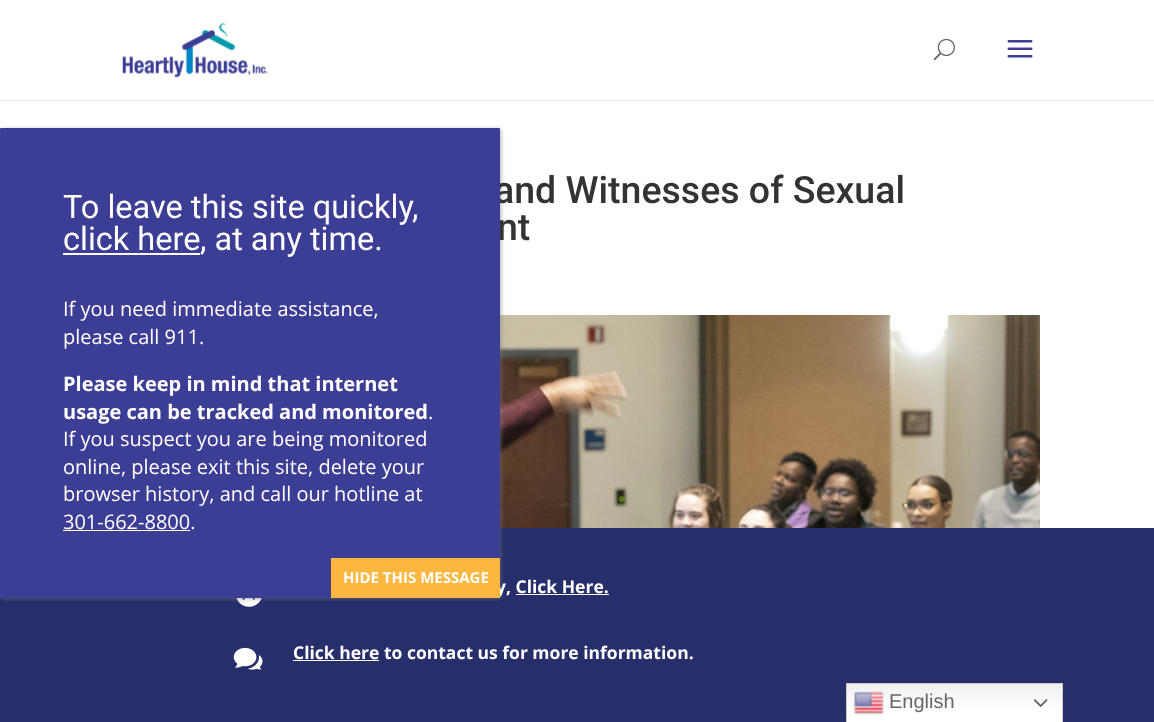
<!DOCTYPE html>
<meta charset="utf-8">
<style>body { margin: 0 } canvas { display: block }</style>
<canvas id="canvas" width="1154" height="722"></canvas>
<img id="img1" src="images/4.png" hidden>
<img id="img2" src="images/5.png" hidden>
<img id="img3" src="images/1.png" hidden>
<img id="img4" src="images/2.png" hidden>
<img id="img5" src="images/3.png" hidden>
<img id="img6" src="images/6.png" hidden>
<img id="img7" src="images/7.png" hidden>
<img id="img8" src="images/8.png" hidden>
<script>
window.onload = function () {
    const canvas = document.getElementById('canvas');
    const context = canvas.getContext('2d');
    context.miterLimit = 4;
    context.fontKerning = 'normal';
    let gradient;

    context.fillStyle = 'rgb(255, 255, 255)';
    context.fillRect(0, 0, 1154, 722);
    context.drawImage(document.getElementById('img1'), 500, 315, 540, 213);
    context.fillStyle = 'rgb(38, 46, 107)';
    context.fillRect(0, 528, 1154, 194);
    context.drawImage(document.getElementById('img2'), 236, 598, 26, 9);
    context.fillStyle = 'rgba(119, 119, 119, 0.57)';
    context.filter = 'blur(2px)';
    context.beginPath();
    context.roundRect(1, 129, 500, 470, 1);
    context.fill();
    context.filter = 'none';
    context.fillStyle = 'rgb(230, 230, 230)';
    context.fillRect(0, 100, 1154, 1);
    context.drawImage(document.getElementById('img3'), 122, 23, 146, 55);
    context.drawImage(document.getElementById('img4'), 933, 38, 22, 23);
    context.drawImage(document.getElementById('img5'), 1007, 40, 26, 18);
    context.fillStyle = 'rgb(255, 255, 255)';
    context.fillRect(516, 594, 93, 1);
    context.drawImage(document.getElementById('img6'), 233, 647, 30, 23);
    context.fillRect(293, 660, 86, 1);
    gradient = context.createLinearGradient(954, 683, 954, 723);
    gradient.addColorStop(0, 'rgb(239, 239, 239)');
    gradient.addColorStop(0.7, 'rgb(255, 255, 255)');
    context.fillStyle = gradient;
    context.fillRect(847, 684, 215, 38);
    context.strokeStyle = 'rgb(204, 204, 204)';
    context.strokeRect(846.5, 683.5, 216, 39);
    context.drawImage(document.getElementById('img7'), 853, 691, 31, 24);
    context.drawImage(document.getElementById('img8'), 1034, 699, 14, 9);
    context.font = '500 37.5px Roboto';
    context.fillStyle = 'rgb(51, 51, 51)';
    context.fillText('and Witnesses of Sexual', 494, 203);
    context.fillText('nt', 497, 240);
    context.font = 'bold 17.5px Open Sans';
    context.fillStyle = 'rgb(255, 255, 255)';
    context.fillText('y, Click Here.', 496, 593);
    context.fillStyle = 'rgb(60, 62, 149)';
    context.beginPath();
    context.roundRect(0, 128, 500, 470, 1);
    context.fill();
    context.fillStyle = 'rgb(252, 183, 64)';
    context.fillRect(331, 558, 169, 40);
    context.font = 'bold 15px Open Sans';
    context.fillStyle = 'rgb(255, 255, 255)';
    context.fillText('HIDE THIS MESSAGE', 343, 583);
    context.font = '32.5px Roboto';
    context.fillText('click here', 63, 250);
    context.fillRect(63, 253, 137, 2);
    context.font = '20px Open Sans';
    context.fillText('301-662-8800.', 63, 529);
    context.fillRect(63, 530, 127, 1);
    context.fillText('browser history, and call our hotline at', 63, 501);
    context.fillText('online, please exit this site, delete your', 63, 474);
    context.fillText('If you suspect you are being monitored', 63, 446);
    context.fillText('.', 428, 419);
    context.font = 'bold 20px Open Sans';
    context.fillText('usage can be tracked and monitored', 63, 419);
    context.fillText('Please keep in mind that internet', 63, 391);
    context.font = '20px Open Sans';
    context.fillText('please call 911.', 63, 344);
    context.fillText('If you need immediate assistance,', 63, 316);
    context.font = '32.5px Roboto';
    context.fillText(', at any time.', 200, 250);
    context.fillText('To leave this site quickly,', 63, 218);
    context.font = 'bold 17.5px Open Sans';
    context.fillText('Click here to contact us for more information.', 293, 659);
    context.font = '20px Liberation Sans';
    context.fillStyle = 'rgb(102, 102, 102)';
    context.fillText('English', 889, 708);
};
</script>
